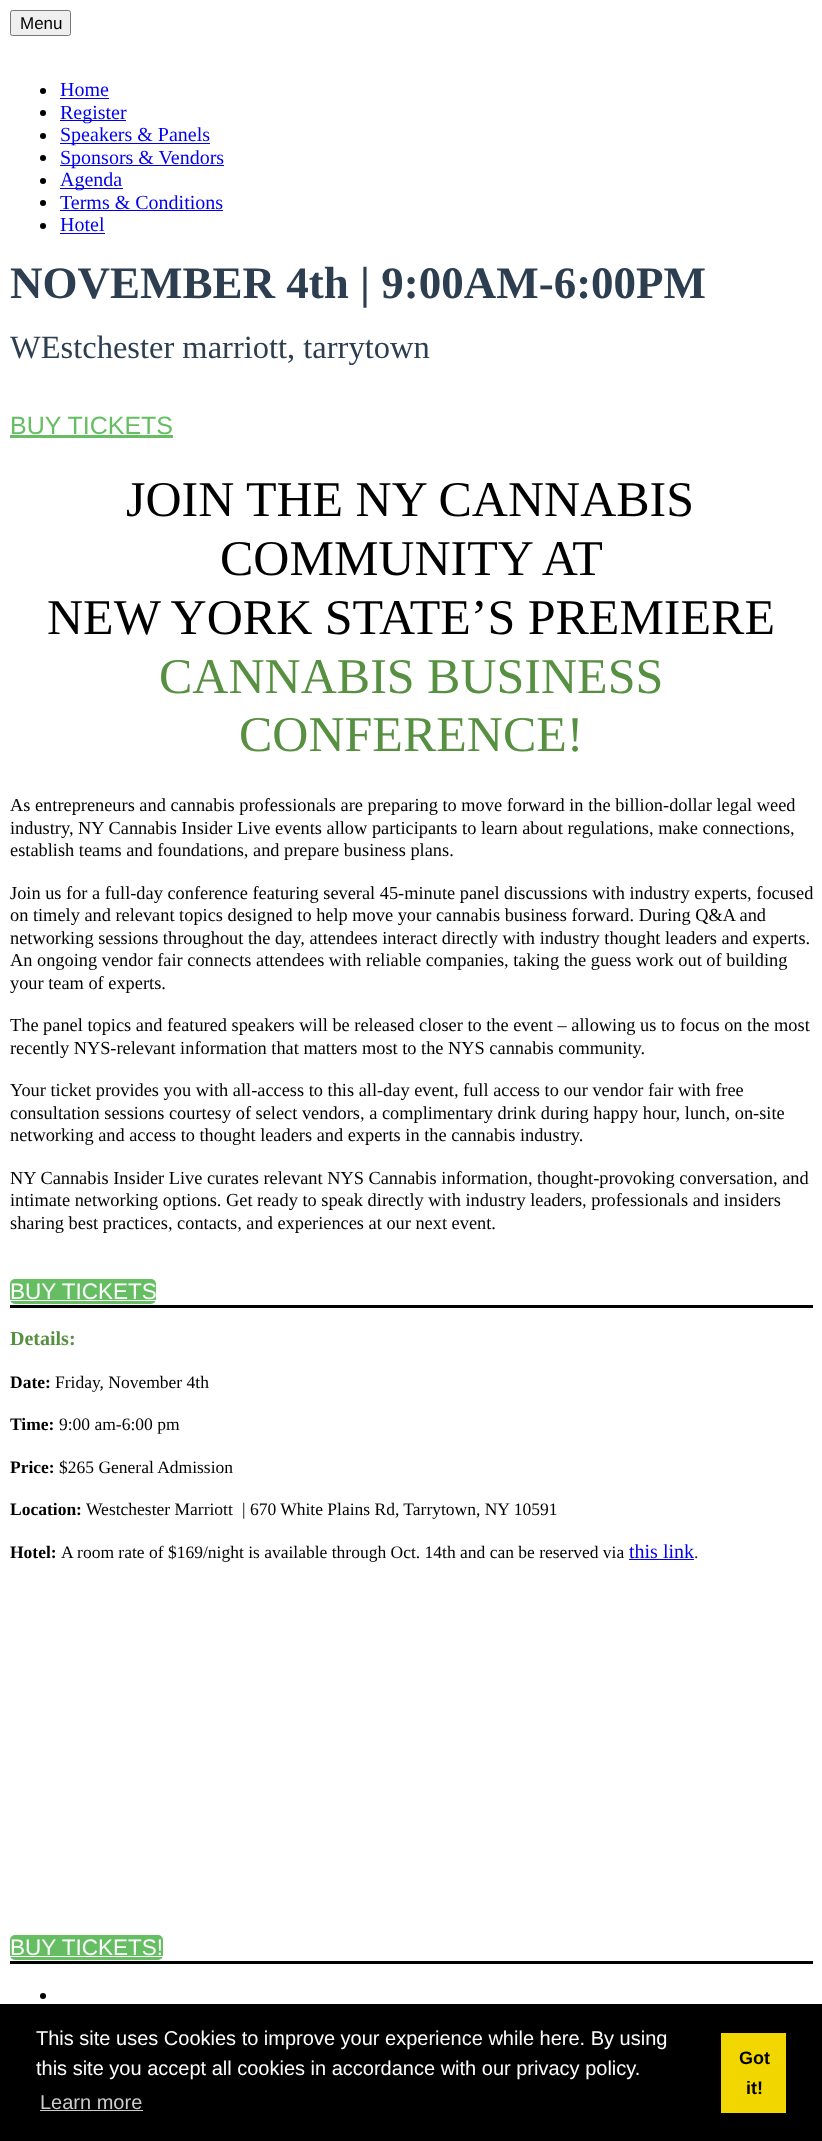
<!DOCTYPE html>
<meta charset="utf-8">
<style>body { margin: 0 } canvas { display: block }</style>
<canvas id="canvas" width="822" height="2141"></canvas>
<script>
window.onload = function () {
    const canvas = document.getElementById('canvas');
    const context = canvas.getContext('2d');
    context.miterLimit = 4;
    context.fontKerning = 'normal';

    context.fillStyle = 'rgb(255, 255, 255)';
    context.fillRect(0, 0, 822, 2141);
    context.fillStyle = 'rgb(239, 239, 239)';
    context.beginPath();
    context.roundRect(10.5, 10.5, 60, 25, 2);
    context.fill();
    context.strokeStyle = 'rgb(118, 118, 118)';
    context.stroke();
    context.fillStyle = 'rgb(0, 0, 0)';
    context.beginPath();
    context.arc(43, 91, 3, 0, 2 * Math.PI);
    context.fill();
    context.fillStyle = 'rgb(0, 0, 238)';
    context.fillRect(60, 98, 49, 1);
    context.fillStyle = 'rgb(0, 0, 0)';
    context.beginPath();
    context.arc(43, 113, 3, 0, 2 * Math.PI);
    context.fill();
    context.fillStyle = 'rgb(0, 0, 238)';
    context.fillRect(60, 120, 66, 1);
    context.fillStyle = 'rgb(0, 0, 0)';
    context.beginPath();
    context.arc(43, 136, 3, 0, 2 * Math.PI);
    context.fill();
    context.fillStyle = 'rgb(0, 0, 238)';
    context.fillRect(60, 143, 150, 1);
    context.fillStyle = 'rgb(0, 0, 0)';
    context.beginPath();
    context.arc(43, 158, 3, 0, 2 * Math.PI);
    context.fill();
    context.fillStyle = 'rgb(0, 0, 238)';
    context.fillRect(60, 165, 164, 1);
    context.fillStyle = 'rgb(0, 0, 0)';
    context.beginPath();
    context.arc(43, 181, 3, 0, 2 * Math.PI);
    context.fill();
    context.fillStyle = 'rgb(0, 0, 238)';
    context.fillRect(60, 188, 63, 1);
    context.fillStyle = 'rgb(0, 0, 0)';
    context.beginPath();
    context.arc(43, 203, 3, 0, 2 * Math.PI);
    context.fill();
    context.fillStyle = 'rgb(0, 0, 238)';
    context.fillRect(60, 210, 163, 1);
    context.fillStyle = 'rgb(0, 0, 0)';
    context.beginPath();
    context.arc(43, 226, 3, 0, 2 * Math.PI);
    context.fill();
    context.fillStyle = 'rgb(0, 0, 238)';
    context.fillRect(60, 233, 45, 1);
    context.fillStyle = 'rgb(101, 190, 98)';
    context.fillRect(10, 435, 163, 3);
    context.beginPath();
    context.roundRect(10, 1279, 146, 25, 5);
    context.fill();
    context.fillStyle = 'rgb(255, 255, 255)';
    context.fillRect(10, 1300, 146, 1);
    context.fillStyle = 'rgb(0, 0, 0)';
    context.fillRect(10, 1305, 803, 3);
    context.fillStyle = 'rgb(0, 0, 238)';
    context.fillRect(629, 1559, 65, 1);
    context.fillStyle = 'rgb(101, 190, 98)';
    context.beginPath();
    context.roundRect(10, 1935, 153, 25, 5);
    context.fill();
    context.fillStyle = 'rgb(255, 255, 255)';
    context.fillRect(10, 1956, 153, 1);
    context.fillStyle = 'rgb(0, 0, 0)';
    context.fillRect(10, 1961, 803, 3);
    context.beginPath();
    context.arc(43, 1996, 3, 0, 2 * Math.PI);
    context.fill();
    context.fillRect(0, 2004, 822, 137);
    context.fillStyle = 'rgb(204, 204, 204)';
    context.fillRect(40, 2110, 103, 1);
    context.fillStyle = 'rgb(241, 214, 0)';
    context.fillRect(721, 2033, 65, 80);
    context.font = '17px Liberation Sans';
    context.fillStyle = 'rgb(0, 0, 0)';
    context.fillText('Menu', 20, 29);
    context.font = '20px Liberation Serif';
    context.fillStyle = 'rgb(0, 0, 238)';
    context.fillText('Home', 60, 96);
    context.fillText('Register', 60, 119);
    context.fillText('Speakers & Panels', 60, 141);
    context.fillText('Sponsors & Vendors', 60, 164);
    context.fillText('Agenda', 60, 186);
    context.fillText('Terms & Conditions', 60, 209);
    context.fillText('Hotel', 60, 231);
    context.font = 'bold 45px Liberation Serif';
    context.fillStyle = 'rgb(44, 62, 80)';
    context.fillText('NOVEMBER 4th | 9:00AM-6:00PM', 10, 298);
    context.font = '32.5px Liberation Serif';
    context.fillText('WEstchester marriott, tarrytown', 10, 358);
    context.font = '25px Liberation Sans';
    context.fillStyle = 'rgb(101, 190, 98)';
    context.fillText('BUY TICKETS', 10, 434);
    context.font = '50px Liberation Serif';
    context.fillStyle = 'rgb(0, 0, 0)';
    context.fillText('JOIN THE NY CANNABIS', 126, 516);
    context.fillText('COMMUNITY AT', 220, 575);
    context.fillText('NEW YORK STATE’S PREMIERE', 47, 634);
    context.fillStyle = 'rgb(86, 144, 64)';
    context.fillText('CANNABIS BUSINESS', 159, 693);
    context.fillText('CONFERENCE!', 239, 751);
    context.font = '18.35px Liberation Serif';
    context.fillStyle = 'rgb(0, 0, 0)';
    context.fillText('As entrepreneurs and cannabis professionals are preparing to move forward in the billion-dollar legal weed', 10, 811);
    context.fillText('industry, NY Cannabis Insider Live events allow participants to learn about regulations, make connections,', 10, 834);
    context.fillText('establish teams and foundations, and prepare business plans.', 10, 856);
    context.fillText('Join us for a full-day conference featuring several 45-minute panel discussions with industry experts, focused', 10, 899);
    context.fillText('on timely and relevant topics designed to help move your cannabis business forward. During Q&A and', 10, 921);
    context.fillText('networking sessions throughout the day, attendees interact directly with industry thought leaders and experts.', 10, 944);
    context.fillText('An ongoing vendor fair connects attendees with reliable companies, taking the guess work out of building', 10, 966);
    context.fillText('your team of experts.', 10, 989);
    context.fillText('The panel topics and featured speakers will be released closer to the event – allowing us to focus on the most', 10, 1031);
    context.fillText('recently NYS-relevant information that matters most to the NYS cannabis community.', 10, 1054);
    context.fillText('Your ticket provides you with all-access to this all-day event, full access to our vendor fair with free', 10, 1096);
    context.fillText('consultation sessions courtesy of select vendors, a complimentary drink during happy hour, lunch, on-site', 10, 1119);
    context.fillText('networking and access to thought leaders and experts in the cannabis industry.', 10, 1141);
    context.fillText('NY Cannabis Insider Live curates relevant NYS Cannabis information, thought-provoking conversation, and', 10, 1184);
    context.fillText('intimate networking options. Get ready to speak directly with industry leaders, professionals and insiders', 10, 1206);
    context.fillText('sharing best practices, contacts, and experiences at our next event.', 10, 1229);
    context.font = '22.5px Liberation Sans';
    context.fillStyle = 'rgb(255, 255, 255)';
    context.fillText('BUY TICKETS', 10, 1299);
    context.font = 'bold 20px Liberation Serif';
    context.fillStyle = 'rgb(86, 144, 64)';
    context.fillText('Details:', 10, 1345);
    context.font = 'bold 17.5px Liberation Serif';
    context.fillStyle = 'rgb(0, 0, 0)';
    context.fillText('Date:', 10, 1388);
    context.font = '17.5px Liberation Serif';
    context.fillText('Friday, November 4th', 55, 1388);
    context.font = 'bold 17.5px Liberation Serif';
    context.fillText('Time:', 10, 1430);
    context.font = '17.5px Liberation Serif';
    context.fillText('9:00 am-6:00 pm', 59, 1430);
    context.font = 'bold 17.5px Liberation Serif';
    context.fillText('Price:', 10, 1473);
    context.font = '17.5px Liberation Serif';
    context.fillText('$265 General Admission', 59, 1473);
    context.font = 'bold 17.5px Liberation Serif';
    context.fillText('Location:', 10, 1515);
    context.font = '17.5px Liberation Serif';
    context.fillText('Westchester Marriott', 86, 1515);
    context.fillText('| 670 White Plains Rd, Tarrytown, NY 10591', 242, 1515);
    context.font = 'bold 17.5px Liberation Serif';
    context.fillText('Hotel:', 10, 1558);
    context.font = '17.5px Liberation Serif';
    context.fillText('A room rate of $169/night is available through Oct. 14th and can be reserved via', 61, 1558);
    context.font = '20px Liberation Serif';
    context.fillStyle = 'rgb(0, 0, 238)';
    context.fillText('this link', 629, 1558);
    context.font = '17.5px Liberation Serif';
    context.fillStyle = 'rgb(32, 33, 36)';
    context.fillText('.', 694, 1558);
    context.fillStyle = 'rgb(255, 255, 255)';
    context.fillRect(624, 1557, 1, 4);
    context.font = '22.5px Liberation Sans';
    context.fillText('BUY TICKETS!', 10, 1955);
    context.font = '20px Liberation Sans';
    context.fillText('This site uses Cookies to improve your experience while here. By using', 36, 2045);
    context.fillText('this site you accept all cookies in accordance with our privacy policy.', 36, 2075);
    context.fillStyle = 'rgb(204, 204, 204)';
    context.fillText('Learn more', 40, 2109);
    context.font = 'bold 18px Liberation Sans';
    context.fillStyle = 'rgb(0, 0, 0)';
    context.fillText('Got', 739, 2064);
    context.fillText('it!', 746, 2094);
};
</script>
